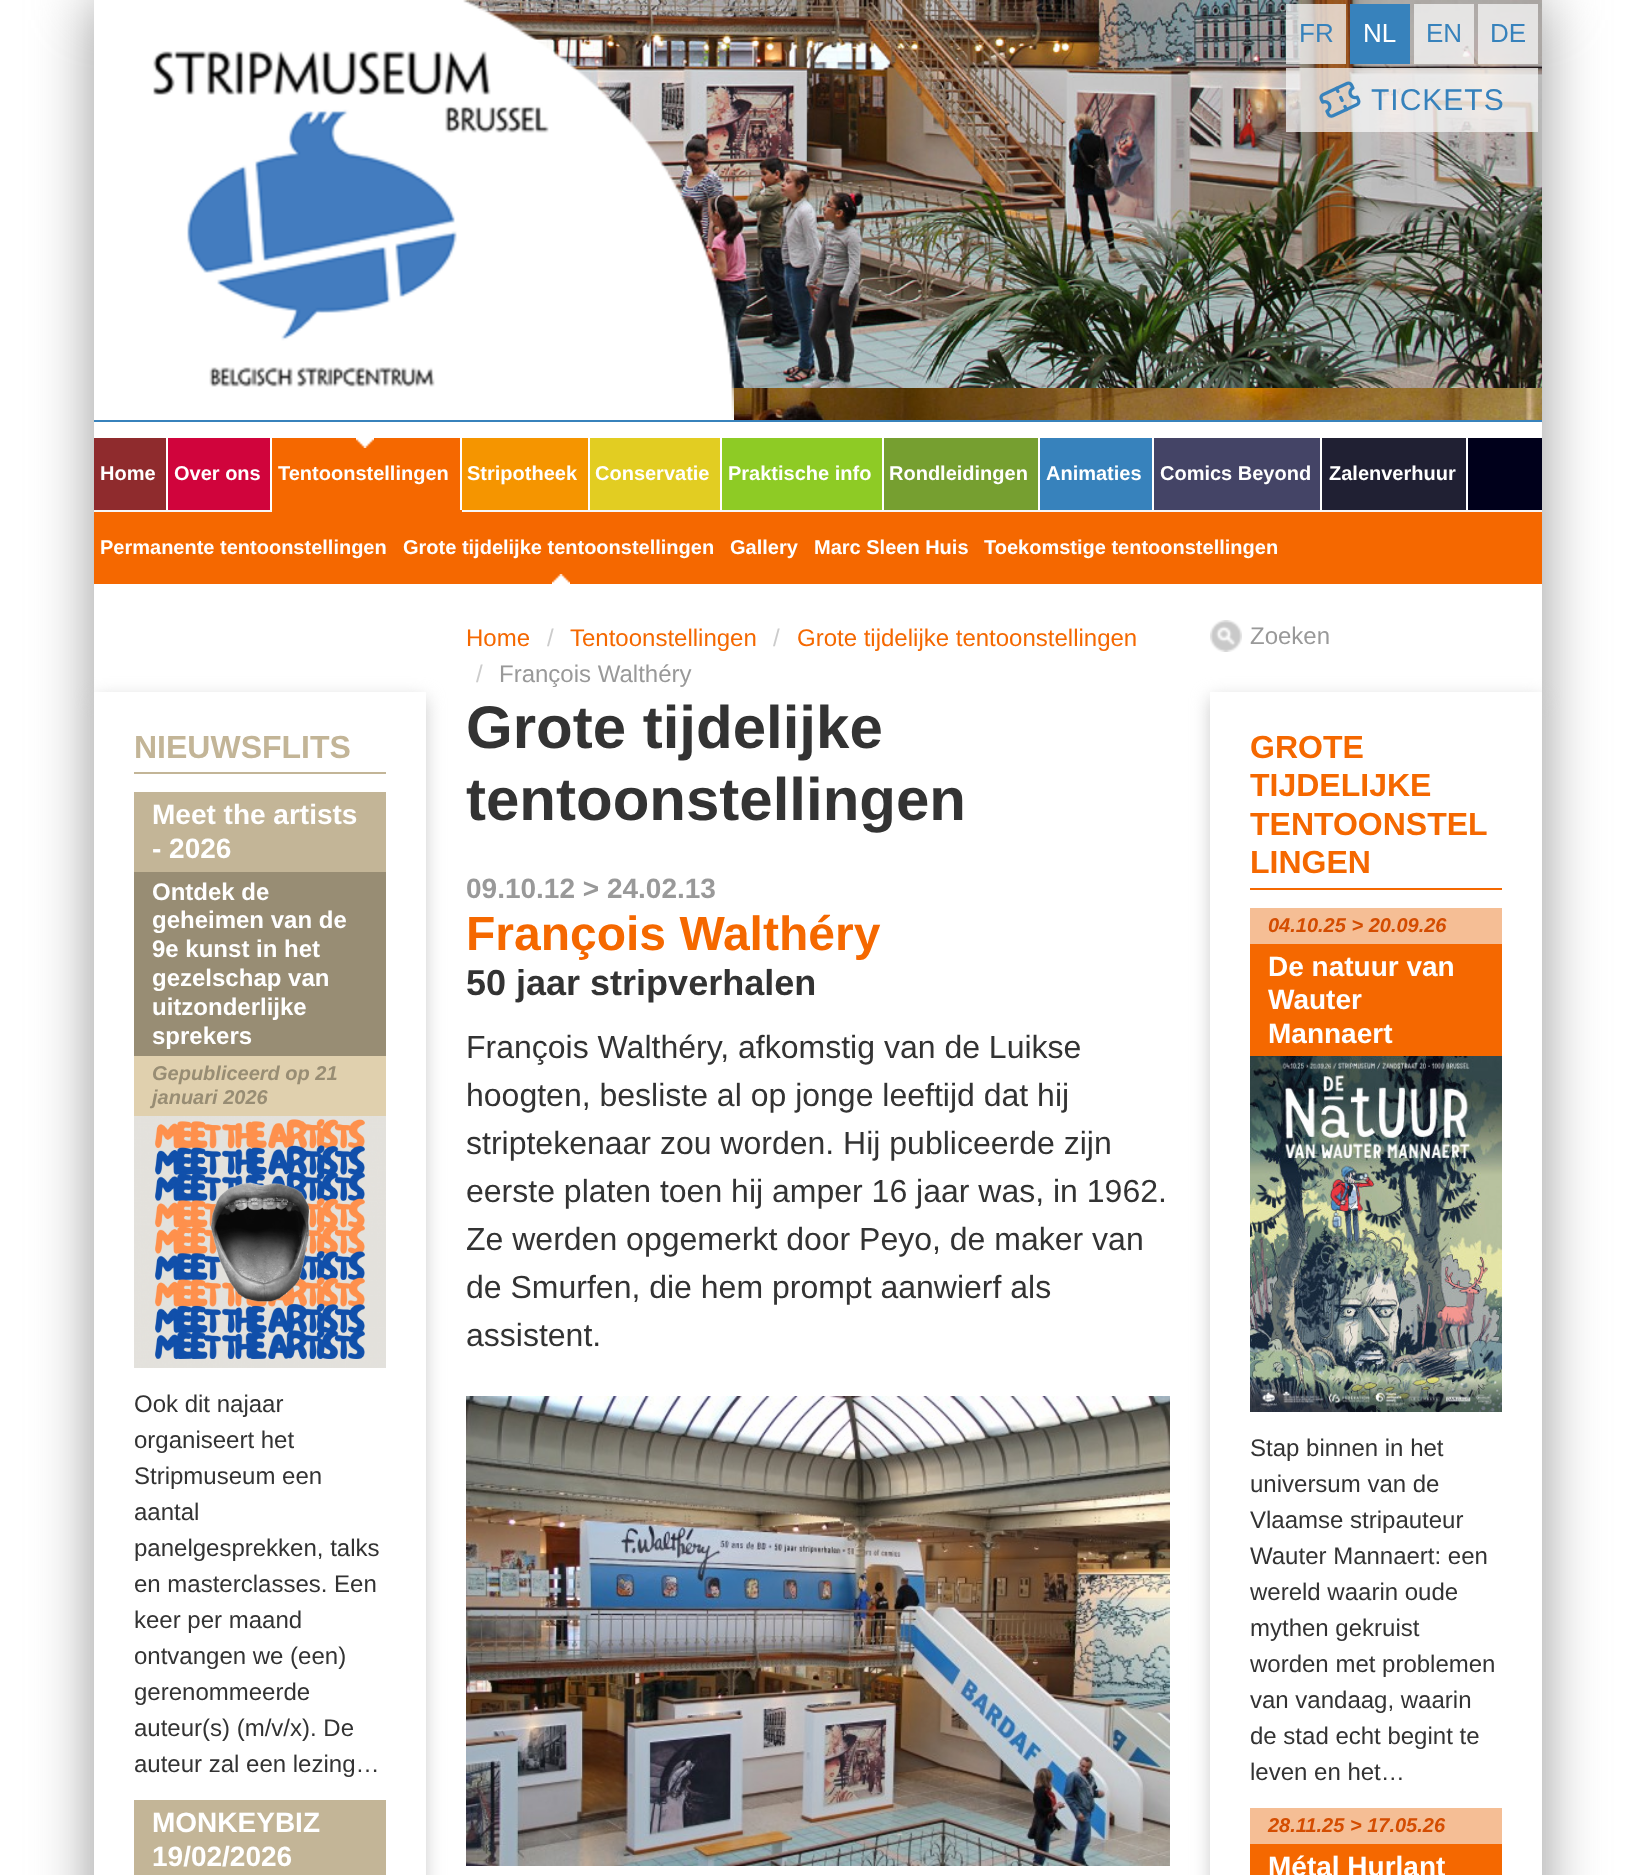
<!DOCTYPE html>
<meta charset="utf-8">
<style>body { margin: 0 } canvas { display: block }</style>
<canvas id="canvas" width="1635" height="1875"></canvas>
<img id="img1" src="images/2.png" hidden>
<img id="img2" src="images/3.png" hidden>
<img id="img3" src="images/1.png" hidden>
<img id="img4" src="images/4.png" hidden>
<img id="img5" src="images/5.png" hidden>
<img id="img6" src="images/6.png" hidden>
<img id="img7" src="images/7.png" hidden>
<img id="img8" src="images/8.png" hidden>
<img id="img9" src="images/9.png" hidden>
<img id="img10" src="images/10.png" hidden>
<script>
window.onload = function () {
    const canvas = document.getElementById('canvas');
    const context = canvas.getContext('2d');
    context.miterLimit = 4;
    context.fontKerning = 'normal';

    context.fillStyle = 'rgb(255, 255, 255)';
    context.fillRect(0, 0, 1635, 1875);
    context.save();
    context.beginPath();
    context.moveTo(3, 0);
    context.lineTo(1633, 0);
    context.lineTo(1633, 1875);
    context.lineTo(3, 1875);
    context.closePath();
    context.moveTo(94, 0);
    context.lineTo(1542, 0);
    context.lineTo(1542, 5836);
    context.lineTo(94, 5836);
    context.closePath();
    context.clip('evenodd');
    context.fillStyle = 'rgb(153, 153, 153)';
    context.filter = 'blur(30px)';
    context.beginPath();
    context.rect(94, 0, 1448, 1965);
    context.fill();
    context.filter = 'none';
    context.restore();
    context.fillStyle = 'rgb(55, 130, 188)';
    context.fillRect(94, 420, 1448, 2);
    context.drawImage(document.getElementById('img1'), 463, 0, 1079, 388);
    context.drawImage(document.getElementById('img2'), 731, 388, 811, 32);
    context.drawImage(document.getElementById('img3'), 94, 0, 640, 420);
    context.fillStyle = 'rgba(247, 247, 247, 0.75)';
    context.fillRect(1286, 4, 60, 60);
    context.fillStyle = 'rgb(55, 130, 188)';
    context.fillRect(1350, 4, 60, 60);
    context.fillStyle = 'rgba(247, 247, 247, 0.75)';
    context.fillRect(1414, 4, 60, 60);
    context.fillRect(1478, 4, 60, 60);
    context.fillRect(1286, 68, 252, 64);
    context.drawImage(document.getElementById('img4'), 1319, 81, 42, 37);
    context.fillStyle = 'rgb(247, 247, 247)';
    context.fillRect(94, 510, 1448, 2);
    context.fillStyle = 'rgb(0, 0, 27)';
    context.fillRect(1468, 438, 74, 72);
    context.fillStyle = 'rgb(245, 104, 0)';
    context.fillRect(272, 438, 188, 72);
    context.drawImage(document.getElementById('img5'), 356, 438, 18, 10);
    context.fillStyle = 'rgb(255, 255, 255)';
    context.fillRect(460, 510, 2, 2);
    context.fillStyle = 'rgb(245, 104, 0)';
    context.fillRect(272, 510, 190, 2);
    context.fillRect(94, 512, 1448, 72);
    context.drawImage(document.getElementById('img6'), 552, 574, 18, 10);
    context.fillStyle = 'rgb(143, 43, 45)';
    context.fillRect(94, 438, 72, 72);
    context.fillStyle = 'rgb(208, 4, 60)';
    context.fillRect(168, 438, 102, 72);
    context.fillStyle = 'rgb(245, 149, 0)';
    context.fillRect(462, 438, 126, 72);
    context.fillStyle = 'rgb(226, 205, 34)';
    context.fillRect(590, 438, 130, 72);
    context.fillStyle = 'rgb(142, 203, 37)';
    context.fillRect(722, 438, 160, 72);
    context.fillStyle = 'rgb(118, 159, 48)';
    context.fillRect(884, 438, 154, 72);
    context.fillStyle = 'rgb(55, 130, 188)';
    context.fillRect(1040, 438, 112, 72);
    context.fillStyle = 'rgb(68, 68, 102)';
    context.fillRect(1154, 438, 166, 72);
    context.fillStyle = 'rgb(32, 32, 51)';
    context.fillRect(1322, 438, 144, 72);
    context.save();
    context.beginPath();
    context.moveTo(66, 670);
    context.lineTo(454, 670);
    context.lineTo(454, 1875);
    context.lineTo(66, 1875);
    context.closePath();
    context.moveTo(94, 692);
    context.lineTo(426, 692);
    context.lineTo(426, 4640);
    context.lineTo(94, 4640);
    context.closePath();
    context.clip('evenodd');
    context.fillStyle = 'rgb(204, 204, 204)';
    context.filter = 'blur(9px)';
    context.beginPath();
    context.rect(94, 698, 332, 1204);
    context.fill();
    context.filter = 'none';
    context.restore();
    context.fillStyle = 'rgb(195, 181, 151)';
    context.fillRect(134, 772, 252, 2);
    context.fillRect(134, 792, 252, 80);
    context.fillStyle = 'rgb(152, 141, 116)';
    context.fillRect(134, 872, 252, 184);
    context.fillStyle = 'rgb(224, 208, 174)';
    context.fillRect(134, 1056, 252, 60);
    context.drawImage(document.getElementById('img7'), 134, 1116, 252, 252);
    context.fillStyle = 'rgb(195, 181, 151)';
    context.fillRect(134, 1800, 252, 75);
    context.drawImage(document.getElementById('img8'), 466, 1396, 704, 470);
    context.drawImage(document.getElementById('img9'), 1210, 620, 32, 32);
    context.save();
    context.beginPath();
    context.moveTo(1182, 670);
    context.lineTo(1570, 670);
    context.lineTo(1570, 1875);
    context.lineTo(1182, 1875);
    context.closePath();
    context.moveTo(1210, 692);
    context.lineTo(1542, 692);
    context.lineTo(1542, 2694);
    context.lineTo(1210, 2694);
    context.closePath();
    context.clip('evenodd');
    context.fillStyle = 'rgb(204, 204, 204)';
    context.filter = 'blur(9px)';
    context.beginPath();
    context.rect(1210, 698, 332, 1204);
    context.fill();
    context.filter = 'none';
    context.restore();
    context.fillStyle = 'rgb(245, 104, 0)';
    context.fillRect(1250, 888, 252, 2);
    context.fillStyle = 'rgb(245, 190, 149)';
    context.fillRect(1250, 908, 252, 36);
    context.fillStyle = 'rgb(245, 104, 0)';
    context.fillRect(1250, 944, 252, 112);
    context.drawImage(document.getElementById('img10'), 1250, 1056, 252, 356);
    context.fillStyle = 'rgb(245, 190, 149)';
    context.fillRect(1250, 1808, 252, 36);
    context.fillStyle = 'rgb(245, 104, 0)';
    context.fillRect(1250, 1844, 252, 31);
    context.font = '26px Liberation Sans';
    context.fillStyle = 'rgb(55, 130, 188)';
    context.fillText('FR', 1299, 42);
    context.fillStyle = 'rgb(255, 255, 255)';
    context.fillText('NL', 1363, 42);
    context.fillStyle = 'rgb(55, 130, 188)';
    context.fillText('EN', 1426, 42);
    context.fillText('DE', 1490, 42);
    context.letterSpacing = '1px';
    context.font = '30px Liberation Sans';
    context.fillText('TICKETS', 1371, 110);
    context.letterSpacing = '0px';
    context.font = 'bold 20px Liberation Sans';
    context.fillStyle = 'rgb(255, 255, 255)';
    context.fillText('Tentoonstellingen', 278, 480);
    context.fillText('Permanente tentoonstellingen', 100, 554);
    context.fillText('Grote tijdelijke tentoonstellingen', 403, 554);
    context.fillText('Gallery', 730, 554);
    context.fillText('Marc Sleen Huis', 814, 554);
    context.fillText('Toekomstige tentoonstellingen', 984, 554);
    context.fillText('Home', 100, 480);
    context.fillText('Over ons', 174, 480);
    context.fillText('Stripotheek', 467, 480);
    context.fillText('Conservatie', 595, 480);
    context.fillText('Praktische info', 728, 480);
    context.fillText('Rondleidingen', 889, 480);
    context.fillText('Animaties', 1046, 480);
    context.fillText('Comics Beyond', 1160, 480);
    context.fillText('Zalenverhuur', 1329, 480);
    context.font = 'bold 32px Liberation Sans';
    context.fillStyle = 'rgb(195, 181, 151)';
    context.fillText('NIEUWSFLITS', 134, 758);
    context.font = 'bold 28px Liberation Sans';
    context.fillStyle = 'rgb(255, 255, 255)';
    context.fillText('Meet the artists', 152, 824);
    context.fillText('- 2026', 152, 858);
    context.font = 'bold 24px Liberation Sans';
    context.fillText('Ontdek de', 152, 900);
    context.fillText('geheimen van de', 152, 928);
    context.fillText('9e kunst in het', 152, 957);
    context.fillText('gezelschap van', 152, 986);
    context.fillText('uitzonderlijke', 152, 1015);
    context.fillText('sprekers', 152, 1044);
    context.font = 'italic bold 20px Liberation Sans';
    context.fillStyle = 'rgb(152, 141, 116)';
    context.fillText('Gepubliceerd op 21', 152, 1080);
    context.fillText('januari 2026', 152, 1104);
    context.font = '24px Liberation Sans';
    context.fillStyle = 'rgb(51, 51, 51)';
    context.fillText('Ook dit najaar', 134, 1412);
    context.fillText('organiseert het', 134, 1448);
    context.fillText('Stripmuseum een', 134, 1484);
    context.fillText('aantal', 134, 1520);
    context.fillText('panelgesprekken, talks', 134, 1556);
    context.fillText('en masterclasses. Een', 134, 1592);
    context.fillText('keer per maand', 134, 1628);
    context.fillText('ontvangen we (een)', 134, 1664);
    context.fillText('gerenommeerde', 134, 1700);
    context.fillText('auteur(s) (m/v/x). De', 134, 1736);
    context.fillText('auteur zal een lezing…', 134, 1772);
    context.font = 'bold 28px Liberation Sans';
    context.fillStyle = 'rgb(255, 255, 255)';
    context.fillText('MONKEYBIZ', 152, 1832);
    context.fillText('19/02/2026', 152, 1866);
    context.font = '24px Liberation Sans';
    context.fillStyle = 'rgb(245, 104, 0)';
    context.fillText('Home', 466, 646);
    context.fillStyle = 'rgb(204, 204, 204)';
    context.fillText('/', 547, 646);
    context.fillStyle = 'rgb(245, 104, 0)';
    context.fillText('Tentoonstellingen', 570, 646);
    context.fillStyle = 'rgb(204, 204, 204)';
    context.fillText('/', 773, 646);
    context.fillStyle = 'rgb(245, 104, 0)';
    context.fillText('Grote tijdelijke tentoonstellingen', 797, 646);
    context.fillStyle = 'rgb(204, 204, 204)';
    context.fillText('/', 476, 682);
    context.fillStyle = 'rgb(153, 153, 153)';
    context.fillText('François Walthéry', 499, 682);
    context.font = 'bold 60px Liberation Sans';
    context.fillStyle = 'rgb(51, 51, 51)';
    context.fillText('Grote tijdelijke', 466, 748);
    context.fillText('tentoonstellingen', 466, 820);
    context.font = 'bold 28px Liberation Sans';
    context.fillStyle = 'rgb(153, 153, 153)';
    context.fillText('09.10.12 > 24.02.13', 466, 898);
    context.font = 'bold 48px Liberation Sans';
    context.fillStyle = 'rgb(245, 104, 0)';
    context.fillText('François Walthéry', 466, 950);
    context.font = 'bold 36px Liberation Sans';
    context.fillStyle = 'rgb(51, 51, 51)';
    context.fillText('50 jaar stripverhalen', 466, 995);
    context.font = '32px Liberation Sans';
    context.fillText('François Walthéry, afkomstig van de Luikse', 466, 1058);
    context.fillText('hoogten, besliste al op jonge leeftijd dat hij', 466, 1106);
    context.fillText('striptekenaar zou worden. Hij publiceerde zijn', 466, 1154);
    context.fillText('eerste platen toen hij amper 16 jaar was, in 1962.', 466, 1202);
    context.fillText('Ze werden opgemerkt door Peyo, de maker van', 466, 1250);
    context.fillText('de Smurfen, die hem prompt aanwierf als', 466, 1298);
    context.fillText('assistent.', 466, 1346);
    context.font = '24px Liberation Sans';
    context.fillStyle = 'rgb(153, 153, 153)';
    context.fillText('Zoeken', 1250, 644);
    context.font = 'bold 32px Liberation Sans';
    context.fillStyle = 'rgb(245, 104, 0)';
    context.fillText('GROTE', 1250, 758);
    context.fillText('TIJDELIJKE', 1250, 796);
    context.fillText('TENTOONSTEL', 1250, 835);
    context.fillText('LINGEN', 1250, 873);
    context.font = 'italic bold 20px Liberation Sans';
    context.fillStyle = 'rgb(212, 77, 1)';
    context.fillText('04.10.25 > 20.09.26', 1268, 932);
    context.font = 'bold 28px Liberation Sans';
    context.fillStyle = 'rgb(255, 255, 255)';
    context.fillText('De natuur van', 1268, 976);
    context.fillText('Wauter', 1268, 1009);
    context.fillText('Mannaert', 1268, 1043);
    context.font = '24px Liberation Sans';
    context.fillStyle = 'rgb(51, 51, 51)';
    context.fillText('Stap binnen in het', 1250, 1456);
    context.fillText('universum van de', 1250, 1492);
    context.fillText('Vlaamse stripauteur', 1250, 1528);
    context.fillText('Wauter Mannaert: een', 1250, 1564);
    context.fillText('wereld waarin oude', 1250, 1600);
    context.fillText('mythen gekruist', 1250, 1636);
    context.fillText('worden met problemen', 1250, 1672);
    context.fillText('van vandaag, waarin', 1250, 1708);
    context.fillText('de stad echt begint te', 1250, 1744);
    context.fillText('leven en het…', 1250, 1780);
    context.font = 'italic bold 20px Liberation Sans';
    context.fillStyle = 'rgb(212, 77, 1)';
    context.fillText('28.11.25 > 17.05.26', 1268, 1832);
    context.font = 'bold 28px Liberation Sans';
    context.fillStyle = 'rgb(255, 255, 255)';
    context.fillText('Métal Hurlant', 1268, 1876);
};
</script>
